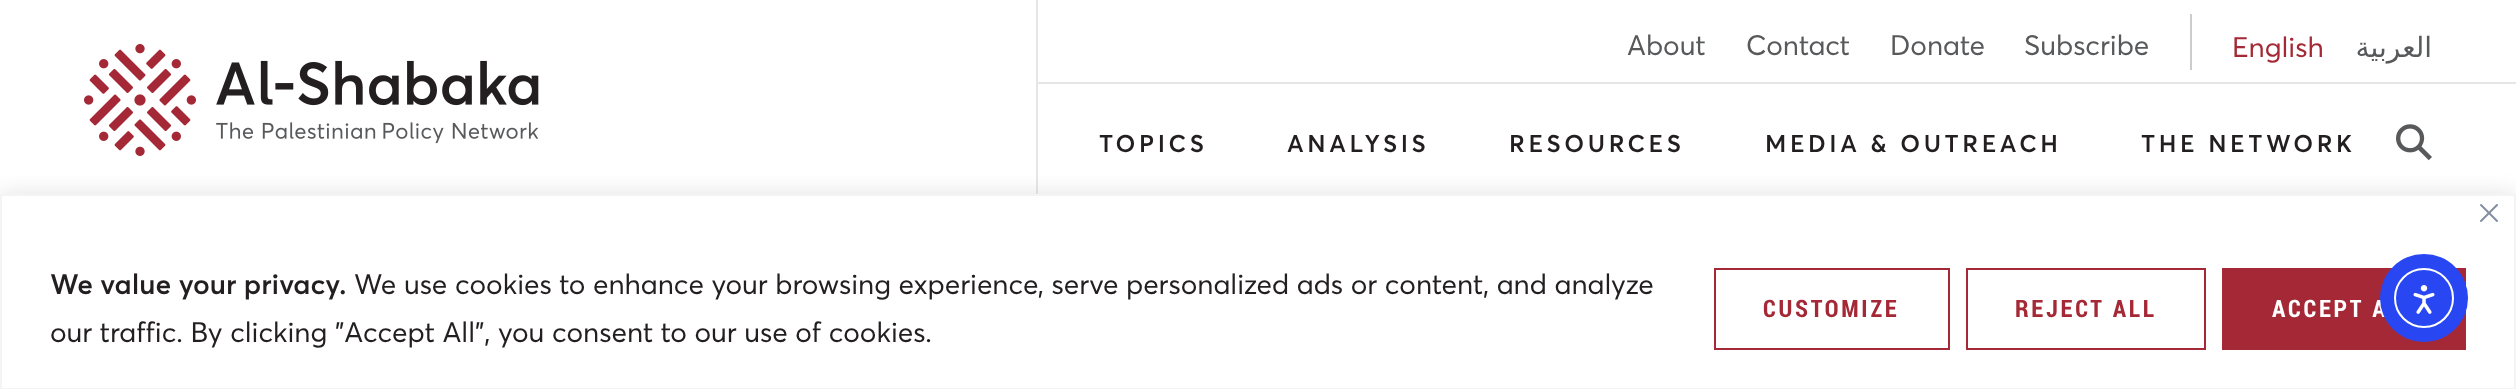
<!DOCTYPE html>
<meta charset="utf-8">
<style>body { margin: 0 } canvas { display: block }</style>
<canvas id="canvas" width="2516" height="389"></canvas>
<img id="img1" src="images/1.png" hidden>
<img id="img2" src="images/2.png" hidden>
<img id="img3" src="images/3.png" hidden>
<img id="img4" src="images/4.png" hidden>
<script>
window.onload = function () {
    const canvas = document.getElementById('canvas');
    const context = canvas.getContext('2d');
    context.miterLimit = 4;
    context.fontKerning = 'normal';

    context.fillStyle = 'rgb(255, 255, 255)';
    context.fillRect(0, 0, 2516, 389);
    context.fillStyle = 'rgb(230, 230, 230)';
    context.fillRect(1036, 0, 2, 200);
    context.drawImage(document.getElementById('img1'), 84, 44, 455, 112);
    context.fillStyle = 'rgb(204, 204, 204)';
    context.fillRect(2190, 14, 2, 56);
    context.fillStyle = 'rgb(230, 230, 230)';
    context.fillRect(1038, 82, 1478, 2);
    context.drawImage(document.getElementById('img2'), 2396, 124, 36, 37);
    context.fillStyle = 'rgba(172, 171, 171, 0.3)';
    context.filter = 'blur(10px)';
    context.beginPath();
    context.rect(0, 192, 2516, 196);
    context.fill();
    context.filter = 'none';
    context.fillStyle = 'rgb(255, 255, 255)';
    context.beginPath();
    context.rect(1, 195, 2514, 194);
    context.fill();
    context.strokeStyle = 'rgb(244, 244, 244)';
    context.lineWidth = 2;
    context.stroke();
    context.drawImage(document.getElementById('img3'), 2480, 204, 18, 18);
    context.strokeStyle = 'rgb(164, 40, 53)';
    context.strokeRect(1715, 269, 234, 80);
    context.strokeRect(1967, 269, 238, 80);
    context.fillStyle = 'rgb(164, 40, 53)';
    context.fillRect(2222, 268, 244, 82);
    context.font = '28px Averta';
    context.fillStyle = 'rgb(88, 89, 91)';
    context.fillText('About', 1627, 55);
    context.fillText('Contact', 1746, 55);
    context.fillText('Donate', 1890, 55);
    context.fillText('Subscribe', 2024, 55);
    context.fillStyle = 'rgb(164, 40, 53)';
    context.fillText('English', 2232, 57);
    context.direction = 'rtl';
    context.font = '28px DejaVu Sans';
    context.fillStyle = 'rgb(88, 89, 91)';
    context.fillText('العربية', 2432, 57);
    context.letterSpacing = '3.6px';
    context.direction = 'ltr';
    context.font = '600 24px Averta';
    context.fillStyle = 'rgb(35, 31, 32)';
    context.fillText('TOPICS', 1099, 152);
    context.fillText('ANALYSIS', 1287, 152);
    context.fillText('RESOURCES', 1509, 152);
    context.fillText('MEDIA & OUTREACH', 1765, 152);
    context.fillText('THE NETWORK', 2141, 152);
    context.letterSpacing = '0px';
    context.font = '600 28px Averta';
    context.fillText('We value your privacy.', 50, 294);
    context.font = '28px Averta';
    context.fillText('We use cookies to enhance your browsing experience, serve personalized ads or content, and analyze', 354, 294);
    context.fillText('our traffic. By clicking "Accept All", you consent to our use of cookies.', 50, 342);
    context.letterSpacing = '2.75px';
    context.font = 'bold 24px Roboto Condensed';
    context.fillStyle = 'rgb(164, 40, 53)';
    context.fillText('CUSTOMIZE', 1763, 317);
    context.fillText('REJECT ALL', 2015, 317);
    context.fillStyle = 'rgb(255, 255, 255)';
    context.fillText('ACCEPT A', 2272, 317);
    context.fillStyle = 'rgb(40, 71, 243)';
    context.beginPath();
    context.arc(2424, 298, 44, 0, 2 * Math.PI);
    context.fill();
    context.beginPath();
    context.arc(2424, 298, 29, 0, 2 * Math.PI);
    context.strokeStyle = 'rgb(255, 255, 255)';
    context.stroke();
    context.drawImage(document.getElementById('img4'), 2413, 285, 22, 29);
};
</script>
